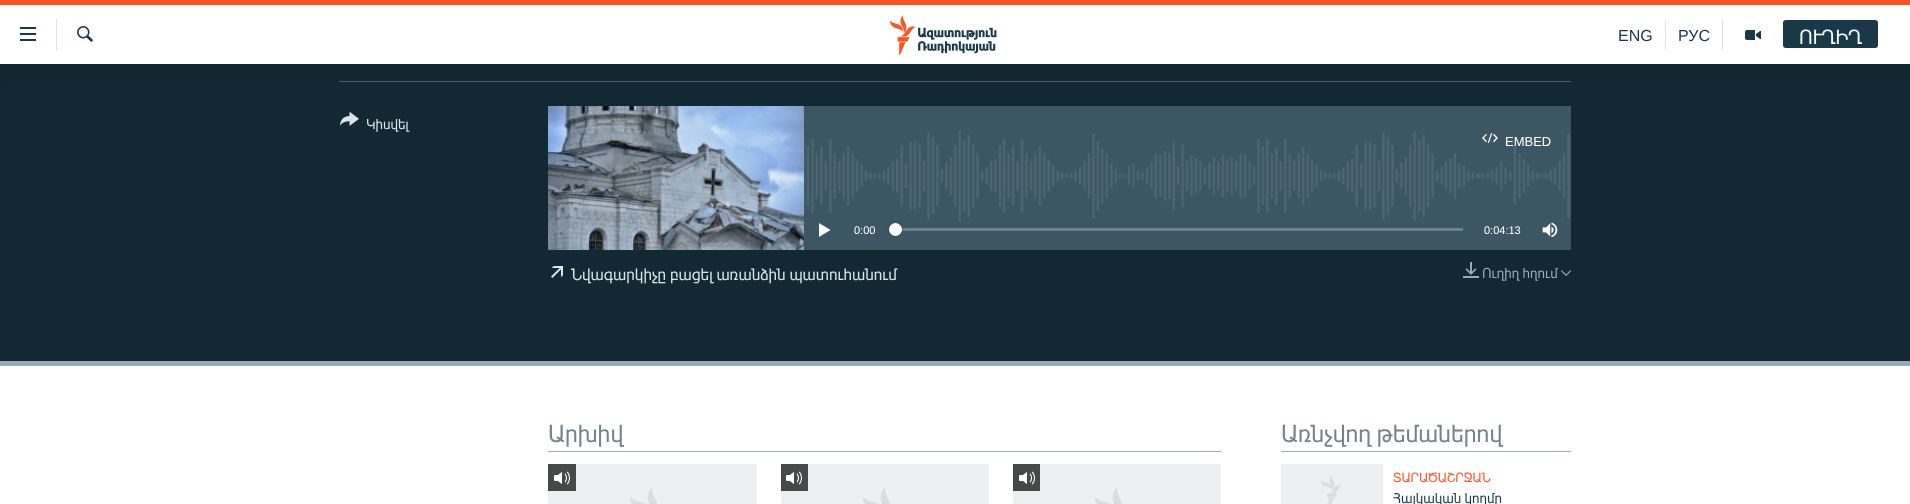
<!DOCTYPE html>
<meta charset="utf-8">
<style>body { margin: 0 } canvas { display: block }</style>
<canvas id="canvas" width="1910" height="504"></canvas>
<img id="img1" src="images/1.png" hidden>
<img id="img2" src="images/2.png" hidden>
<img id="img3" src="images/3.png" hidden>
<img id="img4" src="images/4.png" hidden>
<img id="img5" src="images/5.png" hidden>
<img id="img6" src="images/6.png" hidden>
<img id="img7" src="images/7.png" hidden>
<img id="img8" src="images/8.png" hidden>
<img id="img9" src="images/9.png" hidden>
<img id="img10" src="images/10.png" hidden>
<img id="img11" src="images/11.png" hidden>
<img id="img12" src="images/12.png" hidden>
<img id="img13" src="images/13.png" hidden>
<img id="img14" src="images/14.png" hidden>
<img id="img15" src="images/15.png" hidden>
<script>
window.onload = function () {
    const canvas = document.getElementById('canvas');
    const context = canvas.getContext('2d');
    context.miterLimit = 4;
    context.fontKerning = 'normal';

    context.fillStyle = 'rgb(255, 255, 255)';
    context.fillRect(0, 0, 1910, 504);
    context.fillStyle = 'rgb(18, 40, 50)';
    context.fillRect(0, 64, 1910, 297);
    context.fillStyle = 'rgb(72, 97, 109)';
    context.fillRect(339, 81, 1232, 1);
    context.fillStyle = 'rgba(0, 0, 0, 0.1)';
    context.filter = 'blur(10px)';
    context.beginPath();
    context.rect(0, 0, 1910, 64);
    context.fill();
    context.filter = 'none';
    context.fillStyle = 'rgb(255, 255, 255)';
    context.fillRect(0, 5, 1910, 59);
    context.fillStyle = 'rgb(250, 84, 32)';
    context.fillRect(0, 0, 1910, 5);
    context.drawImage(document.getElementById('img1'), 20, 27, 16, 14);
    context.fillStyle = 'rgb(220, 228, 232)';
    context.fillRect(56, 19, 1, 32);
    context.drawImage(document.getElementById('img2'), 77, 26, 16, 16);
    context.drawImage(document.getElementById('img3'), 890, 15, 107, 40);
    context.fillRect(1665, 20, 1, 30);
    context.fillRect(1722, 20, 1, 30);
    context.drawImage(document.getElementById('img4'), 1745, 30, 16, 10);
    context.fillStyle = 'rgb(26, 57, 72)';
    context.beginPath();
    context.roundRect(1783, 20, 95, 28, 3);
    context.fill();
    context.fillStyle = 'rgb(149, 173, 185)';
    context.fillRect(0, 361, 1910, 5);
    context.drawImage(document.getElementById('img5'), 340, 111, 19, 15);
    context.fillStyle = 'rgb(60, 87, 99)';
    context.fillRect(804, 106, 767, 144);
    context.drawImage(document.getElementById('img6'), 804, 130, 766, 92);
    context.drawImage(document.getElementById('img7'), 548, 106, 256, 144);
    context.drawImage(document.getElementById('img8'), 1482, 133, 16, 10);
    context.fillStyle = 'rgb(255, 255, 255)';
    context.beginPath();
    context.moveTo(819, 237);
    context.lineTo(830.5, 230);
    context.lineTo(819, 223);
    context.closePath();
    context.fill();
    context.fillStyle = 'rgb(109, 129, 138)';
    context.fillRect(895, 228, 568, 3);
    context.fillStyle = 'rgb(65, 65, 68)';
    context.filter = 'blur(1.5px)';
    context.beginPath();
    context.roundRect(889, 223, 13, 13, 6.5);
    context.fill();
    context.filter = 'none';
    context.fillStyle = 'rgb(255, 255, 255)';
    context.beginPath();
    context.arc(895.5, 229.5, 6.5, 0, 2 * Math.PI);
    context.fill();
    context.drawImage(document.getElementById('img9'), 1542, 222, 16, 16);
    context.drawImage(document.getElementById('img10'), 551, 266, 12, 12);
    context.drawImage(document.getElementById('img11'), 1463, 262, 16, 16);
    context.drawImage(document.getElementById('img12'), 1561, 270, 10, 6);
    context.fillStyle = 'rgb(149, 173, 185)';
    context.fillRect(548, 451, 673, 1);
    context.fillStyle = 'rgb(237, 239, 240)';
    context.fillRect(548, 464, 209, 40);
    context.drawImage(document.getElementById('img13'), 630, 487, 27, 17);
    context.fillStyle = 'rgb(71, 72, 72)';
    context.fillRect(548, 464, 28, 27);
    context.drawImage(document.getElementById('img14'), 554, 471, 16, 14);
    context.fillStyle = 'rgb(237, 239, 240)';
    context.fillRect(781, 464, 208, 40);
    context.drawImage(document.getElementById('img13'), 863, 487, 27, 17);
    context.fillStyle = 'rgb(71, 72, 72)';
    context.fillRect(781, 464, 27, 27);
    context.drawImage(document.getElementById('img14'), 786, 471, 16, 14);
    context.fillStyle = 'rgb(237, 239, 240)';
    context.fillRect(1013, 464, 208, 40);
    context.drawImage(document.getElementById('img13'), 1095, 487, 27, 17);
    context.fillStyle = 'rgb(71, 72, 72)';
    context.fillRect(1013, 464, 27, 27);
    context.drawImage(document.getElementById('img14'), 1019, 471, 16, 14);
    context.fillStyle = 'rgb(149, 173, 185)';
    context.fillRect(1281, 451, 290, 1);
    context.fillStyle = 'rgb(237, 239, 240)';
    context.fillRect(1281, 464, 102, 40);
    context.drawImage(document.getElementById('img15'), 1321, 476, 21, 28);
    context.font = '16px Liberation Sans';
    context.fillStyle = 'rgb(26, 57, 72)';
    context.fillText('ENG', 1618, 41);
    context.fillText('РУС', 1678, 41);
    context.font = '20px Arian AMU';
    context.fillStyle = 'rgb(255, 255, 255)';
    context.fillText('ՈՒՂԻՂ', 1799, 44);
    context.font = '14px Arian AMU';
    context.fillStyle = 'rgb(220, 228, 232)';
    context.fillText('Կիսվել', 366, 129);
    context.font = '13px Liberation Sans';
    context.fillStyle = 'rgb(255, 255, 255)';
    context.fillText('EMBED', 1505, 146);
    context.font = '11px Liberation Sans';
    context.fillText('0:00', 854, 234);
    context.fillText('0:04:13', 1484, 234);
    context.font = '16px Arian AMU';
    context.fillStyle = 'rgb(220, 228, 232)';
    context.fillText('Նվագարկիչը բացել առանձին պատուհանում', 571, 280);
    context.font = '14px Arian AMU';
    context.fillStyle = 'rgb(149, 173, 185)';
    context.fillText('Ուղիղ հղում', 1482, 278);
    context.font = '24px Arian AMU';
    context.fillStyle = 'rgb(113, 131, 141)';
    context.fillText('Արխիվ', 548, 442);
    context.fillText('Առնչվող թեմաներով', 1281, 442);
    context.font = '13px Arian AMU';
    context.fillStyle = 'rgb(250, 84, 32)';
    context.fillText('ՏԱՐԱԾԱՇՐՋԱՆ', 1393, 482);
    context.font = '14px Arian AMU';
    context.fillStyle = 'rgb(26, 57, 72)';
    context.fillText('Հայկական կողմը', 1393, 503);
};
</script>
